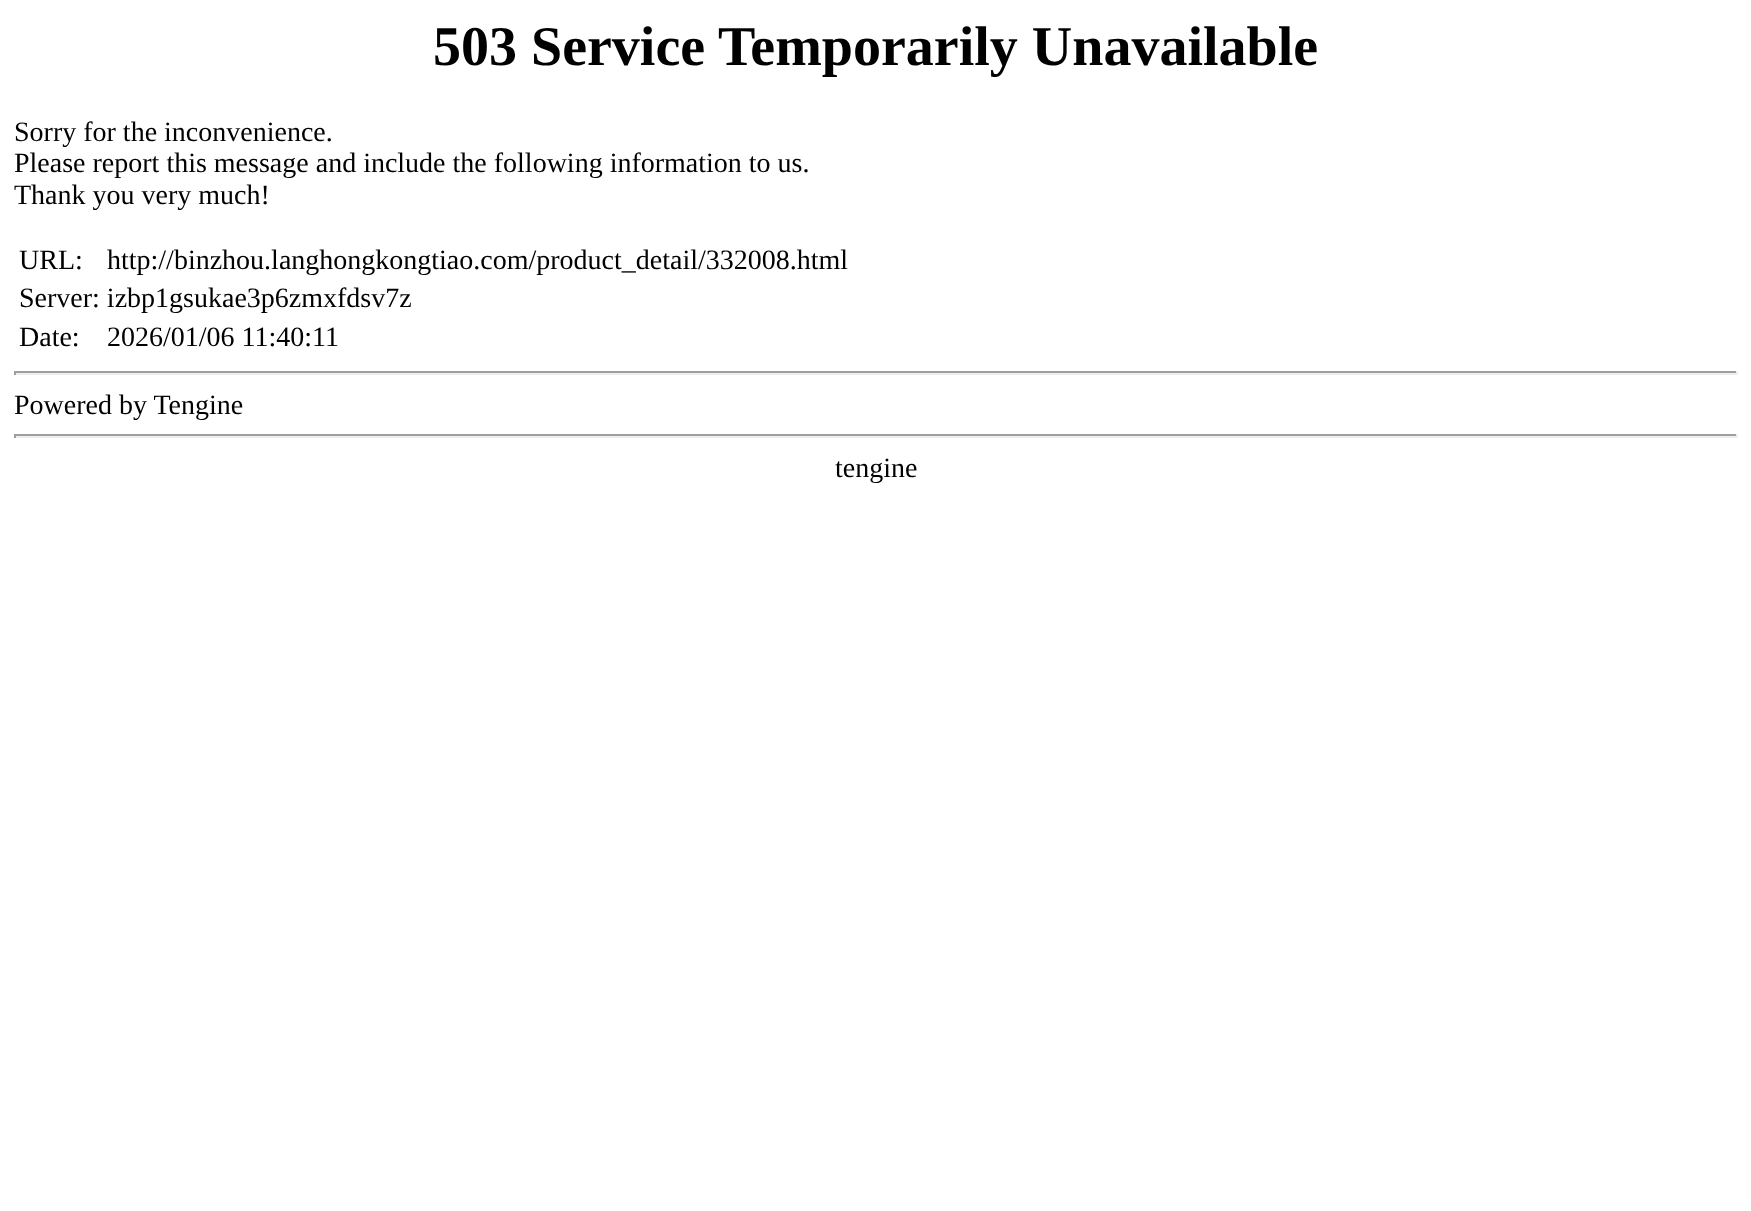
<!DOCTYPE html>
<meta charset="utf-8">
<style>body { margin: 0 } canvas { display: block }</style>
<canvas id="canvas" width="1751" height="1211"></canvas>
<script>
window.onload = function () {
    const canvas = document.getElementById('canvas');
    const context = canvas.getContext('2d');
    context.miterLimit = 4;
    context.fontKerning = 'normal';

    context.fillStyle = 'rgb(255, 255, 255)';
    context.fillRect(0, 0, 1751, 1211);
    context.fillStyle = 'rgb(159, 159, 159)';
    context.fillRect(14, 371, 1724, 2);
    context.fillStyle = 'rgb(238, 238, 238)';
    context.fillRect(1736, 371, 2, 4);
    context.fillRect(14, 373, 1724, 2);
    context.fillStyle = 'rgb(159, 159, 159)';
    context.fillRect(14, 371, 2, 4);
    context.fillRect(14, 434, 1724, 2);
    context.fillStyle = 'rgb(238, 238, 238)';
    context.fillRect(1736, 434, 2, 4);
    context.fillRect(14, 436, 1724, 2);
    context.fillStyle = 'rgb(159, 159, 159)';
    context.fillRect(14, 434, 2, 4);
    context.font = 'bold 56px Liberation Serif';
    context.fillStyle = 'rgb(0, 0, 0)';
    context.fillText('503 Service Temporarily Unavailable', 433, 65);
    context.font = '28px Liberation Serif';
    context.fillText('Sorry for the inconvenience.', 14, 141);
    context.fillText('Please report this message and include the following information to us.', 14, 172);
    context.fillText('Thank you very much!', 14, 204);
    context.fillText('URL:', 19, 269);
    context.fillText('http://binzhou.langhongkongtiao.com/product_detail/332008.html', 107, 269);
    context.fillText('Server: izbp1gsukae3p6zmxfdsv7z', 19, 307);
    context.fillText('Date:', 19, 346);
    context.fillText('2026/01/06 11:40:11', 107, 346);
    context.fillText('Powered by Tengine', 14, 414);
    context.fillText('tengine', 835, 477);
};
</script>
